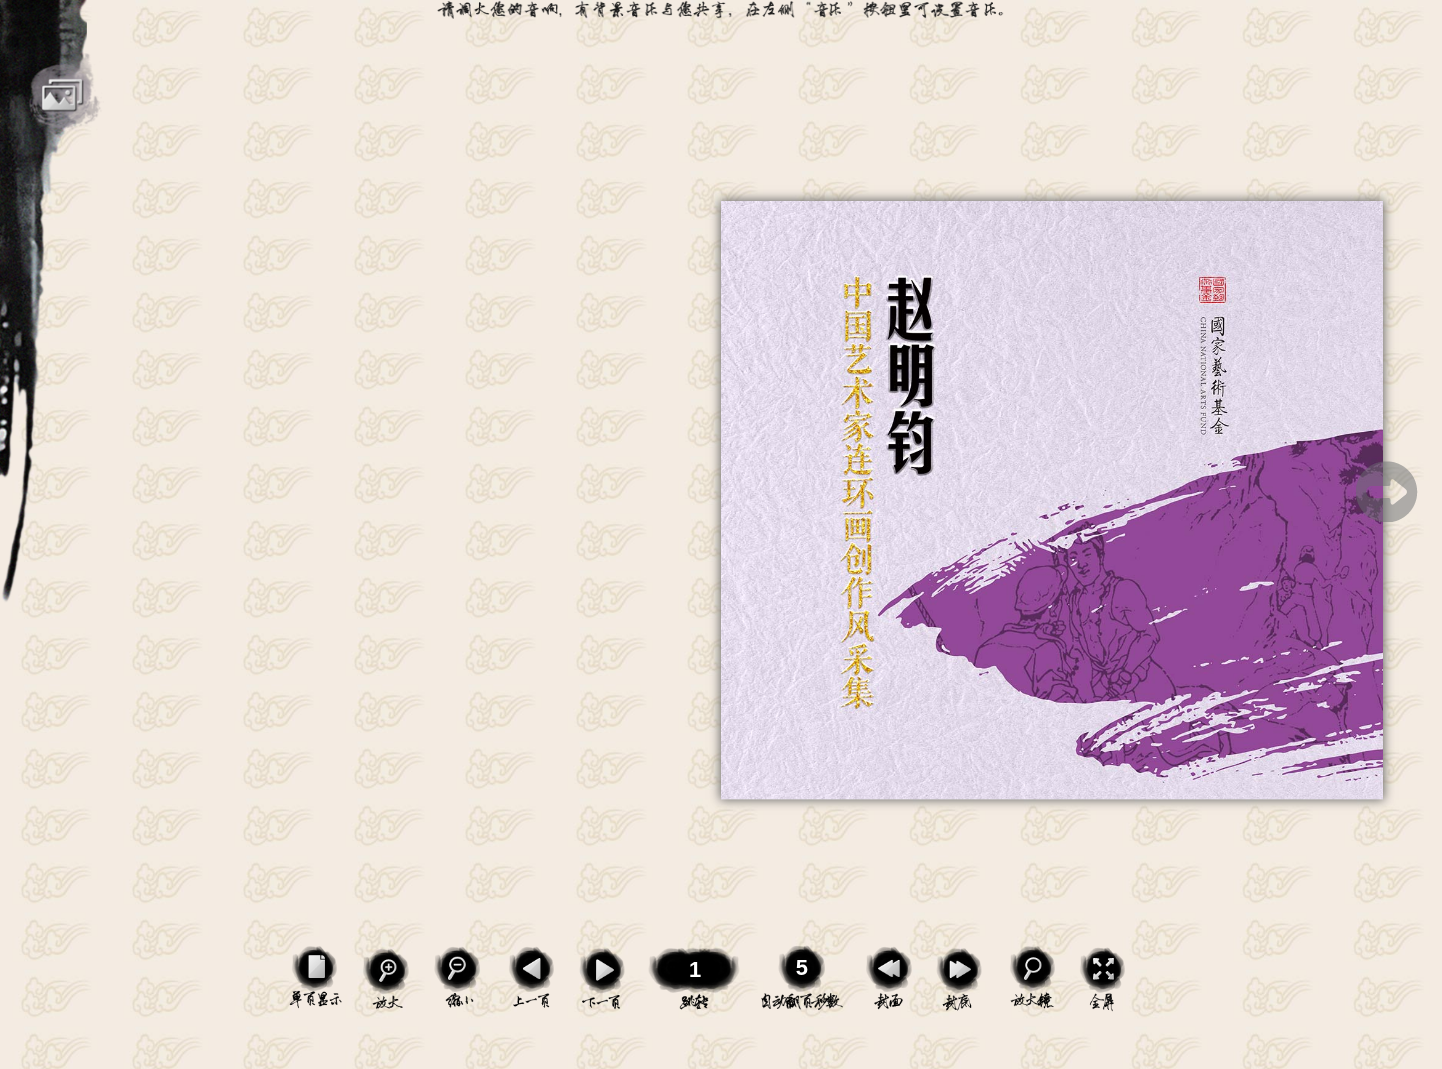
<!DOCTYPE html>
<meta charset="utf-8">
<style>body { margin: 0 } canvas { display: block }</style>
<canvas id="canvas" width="1442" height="1069"></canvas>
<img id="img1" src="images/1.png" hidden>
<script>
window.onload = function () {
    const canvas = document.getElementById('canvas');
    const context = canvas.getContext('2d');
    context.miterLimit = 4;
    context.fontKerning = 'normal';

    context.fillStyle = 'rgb(255, 255, 255)';
    context.fillRect(0, 0, 1442, 1069);
    context.drawImage(document.getElementById('img1'), 0, 0, 1442, 1069);
};
</script>
